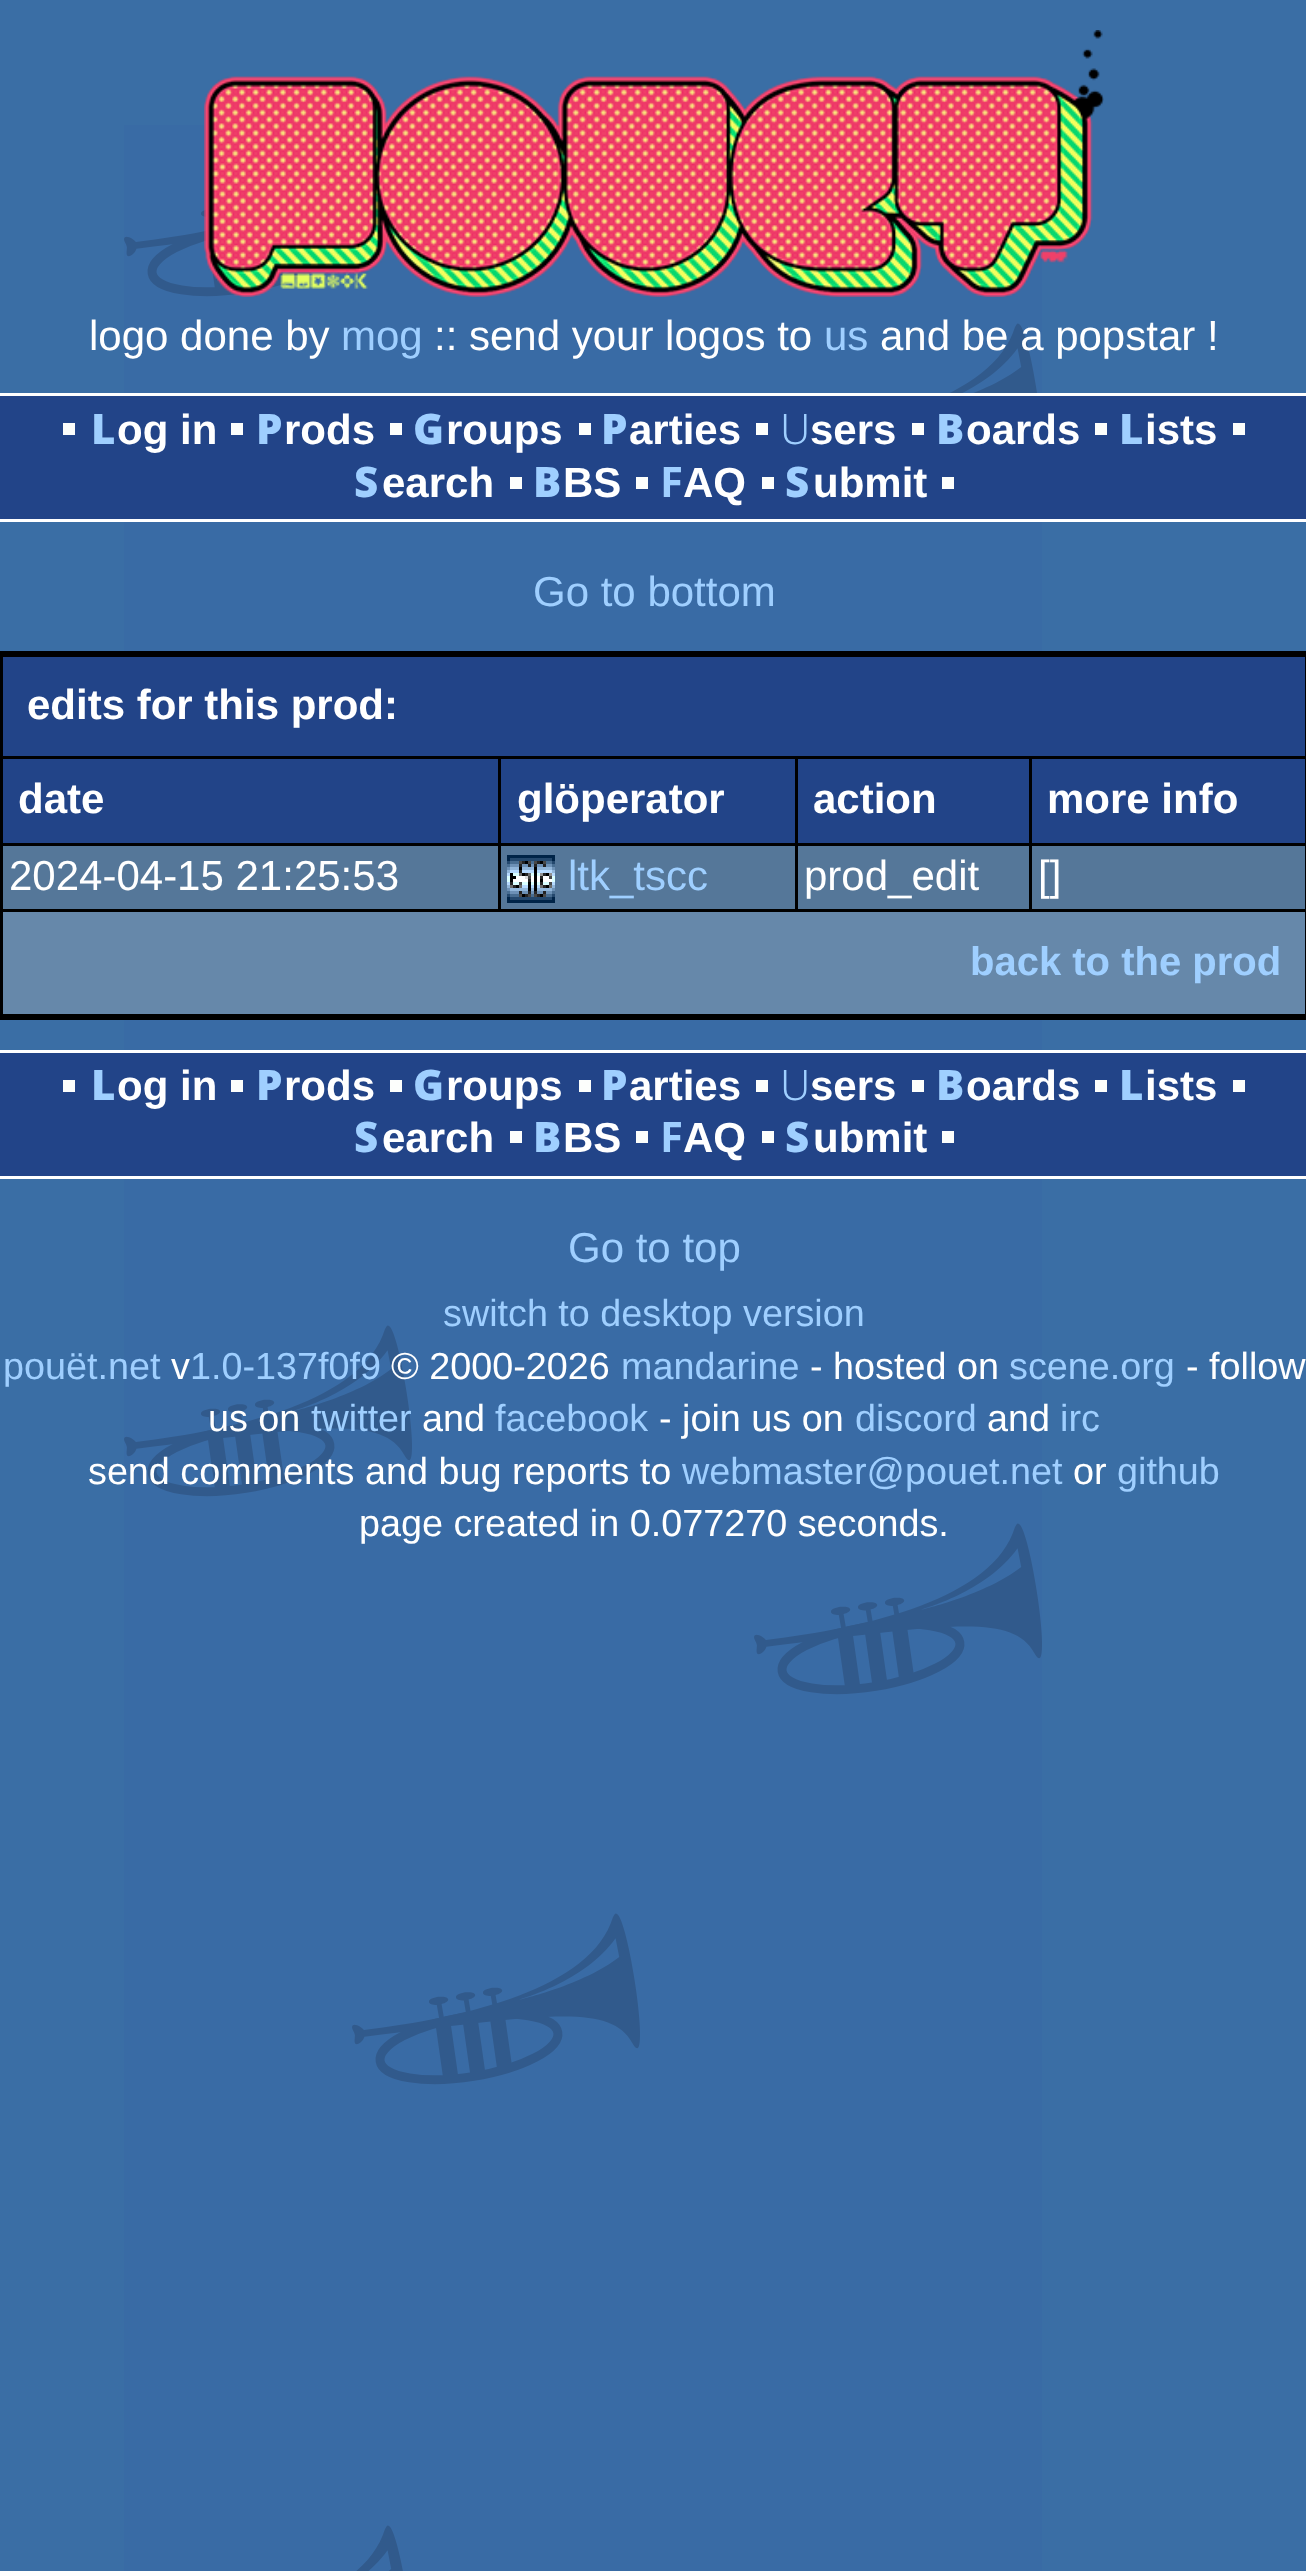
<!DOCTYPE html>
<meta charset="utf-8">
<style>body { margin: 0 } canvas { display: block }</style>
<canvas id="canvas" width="1306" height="2571"></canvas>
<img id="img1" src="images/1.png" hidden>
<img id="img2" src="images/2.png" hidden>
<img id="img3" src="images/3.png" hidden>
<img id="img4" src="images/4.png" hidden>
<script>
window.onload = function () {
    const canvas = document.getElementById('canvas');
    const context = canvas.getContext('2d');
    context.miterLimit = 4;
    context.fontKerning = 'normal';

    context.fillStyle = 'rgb(58, 110, 165)';
    context.fillRect(0, 0, 1306, 2571);
    context.drawImage(document.getElementById('img1'), 124, 125, 918, 2446);
    context.drawImage(document.getElementById('img2'), 204, 30, 900, 267);
    context.fillStyle = 'rgb(34, 68, 136)';
    context.fillRect(0, 396, 1306, 123);
    context.fillStyle = 'rgb(255, 255, 255)';
    context.fillRect(0, 393, 1306, 3);
    context.fillRect(0, 519, 1306, 3);
    context.drawImage(document.getElementById('img3'), 63, 423, 180, 12);
    context.fillStyle = 'rgb(252, 254, 252)';
    context.fillRect(390, 423, 12, 12);
    context.fillRect(579, 423, 12, 12);
    context.fillRect(756, 423, 12, 12);
    context.fillRect(912, 423, 12, 12);
    context.fillRect(1095, 423, 12, 12);
    context.fillRect(1233, 423, 12, 12);
    context.fillRect(510, 477, 12, 12);
    context.fillRect(636, 477, 12, 12);
    context.fillRect(762, 477, 12, 12);
    context.fillRect(942, 477, 12, 12);
    context.fillStyle = 'rgb(0, 0, 0)';
    context.fillRect(0, 651, 1306, 369);
    context.fillStyle = 'rgb(34, 68, 136)';
    context.fillRect(3, 657, 1302, 99);
    context.fillRect(3, 759, 495, 84);
    context.fillRect(501, 759, 294, 84);
    context.fillRect(798, 759, 231, 84);
    context.fillRect(1032, 759, 273, 84);
    context.fillStyle = 'rgb(85, 119, 153)';
    context.fillRect(3, 846, 495, 63);
    context.fillRect(501, 846, 294, 63);
    context.drawImage(document.getElementById('img4'), 507, 855, 48, 48);
    context.fillRect(798, 846, 231, 63);
    context.fillRect(1032, 846, 273, 63);
    context.fillStyle = 'rgb(102, 136, 170)';
    context.fillRect(3, 912, 1302, 102);
    context.fillStyle = 'rgb(34, 68, 136)';
    context.fillRect(0, 1053, 1306, 123);
    context.fillStyle = 'rgb(255, 255, 255)';
    context.fillRect(0, 1050, 1306, 3);
    context.fillRect(0, 1176, 1306, 3);
    context.drawImage(document.getElementById('img3'), 63, 1080, 180, 12);
    context.fillStyle = 'rgb(252, 254, 252)';
    context.fillRect(390, 1080, 12, 12);
    context.fillRect(579, 1080, 12, 12);
    context.fillRect(756, 1080, 12, 12);
    context.fillRect(912, 1080, 12, 12);
    context.fillRect(1095, 1080, 12, 12);
    context.fillRect(1233, 1080, 12, 12);
    context.fillRect(510, 1131, 12, 12);
    context.fillRect(636, 1131, 12, 12);
    context.fillRect(762, 1131, 12, 12);
    context.fillRect(942, 1131, 12, 12);
    context.font = '42px Liberation Sans';
    context.fillStyle = 'rgb(255, 255, 255)';
    context.fillText('logo done by', 89, 350);
    context.fillStyle = 'rgb(159, 207, 255)';
    context.fillText('mog', 341, 350);
    context.fillStyle = 'rgb(255, 255, 255)';
    context.fillText(':: send your logos to', 434, 350);
    context.fillStyle = 'rgb(159, 207, 255)';
    context.fillText('us', 824, 350);
    context.fillStyle = 'rgb(255, 255, 255)';
    context.fillText('and be a popstar !', 880, 350);
    context.font = '900 42px Noto Sans';
    context.fillStyle = 'rgb(159, 207, 255)';
    context.fillText('L', 91, 444);
    context.font = 'bold 42px Liberation Sans';
    context.fillStyle = 'rgb(255, 255, 255)';
    context.fillText('og in', 117, 444);
    context.font = '900 42px Noto Sans';
    context.fillStyle = 'rgb(159, 207, 255)';
    context.fillText('P', 256, 444);
    context.font = 'bold 42px Liberation Sans';
    context.fillStyle = 'rgb(255, 255, 255)';
    context.fillText('rods', 284, 444);
    context.font = '900 42px Noto Sans';
    context.fillStyle = 'rgb(159, 207, 255)';
    context.fillText('G', 413, 444);
    context.font = 'bold 42px Liberation Sans';
    context.fillStyle = 'rgb(255, 255, 255)';
    context.fillText('roups', 446, 444);
    context.font = '900 42px Noto Sans';
    context.fillStyle = 'rgb(159, 207, 255)';
    context.fillText('P', 601, 444);
    context.font = 'bold 42px Liberation Sans';
    context.fillStyle = 'rgb(255, 255, 255)';
    context.fillText('arties', 629, 444);
    context.font = '300 42px Noto Sans';
    context.fillStyle = 'rgb(159, 207, 255)';
    context.fillText('U', 780, 444);
    context.font = 'bold 42px Liberation Sans';
    context.fillStyle = 'rgb(255, 255, 255)';
    context.fillText('sers', 810, 444);
    context.font = '900 42px Noto Sans';
    context.fillStyle = 'rgb(159, 207, 255)';
    context.fillText('B', 936, 444);
    context.font = 'bold 42px Liberation Sans';
    context.fillStyle = 'rgb(255, 255, 255)';
    context.fillText('oards', 966, 444);
    context.font = '900 42px Noto Sans';
    context.fillStyle = 'rgb(159, 207, 255)';
    context.fillText('L', 1119, 444);
    context.font = 'bold 42px Liberation Sans';
    context.fillStyle = 'rgb(255, 255, 255)';
    context.fillText('ists', 1145, 444);
    context.font = '900 42px Noto Sans';
    context.fillStyle = 'rgb(159, 207, 255)';
    context.fillText('S', 354, 497);
    context.font = 'bold 42px Liberation Sans';
    context.fillStyle = 'rgb(255, 255, 255)';
    context.fillText('earch', 382, 497);
    context.font = '900 42px Noto Sans';
    context.fillStyle = 'rgb(159, 207, 255)';
    context.fillText('B', 533, 497);
    context.font = 'bold 42px Liberation Sans';
    context.fillStyle = 'rgb(255, 255, 255)';
    context.fillText('BS', 563, 497);
    context.font = 'bold 42px Noto Sans';
    context.fillStyle = 'rgb(159, 207, 255)';
    context.fillText('F', 660, 497);
    context.font = 'bold 42px Liberation Sans';
    context.fillStyle = 'rgb(255, 255, 255)';
    context.fillText('AQ', 683, 497);
    context.font = '900 42px Noto Sans';
    context.fillStyle = 'rgb(159, 207, 255)';
    context.fillText('S', 785, 497);
    context.font = 'bold 42px Liberation Sans';
    context.fillStyle = 'rgb(255, 255, 255)';
    context.fillText('ubmit', 813, 497);
    context.font = '42px Liberation Sans';
    context.fillStyle = 'rgb(159, 207, 255)';
    context.fillText('Go to bottom', 533, 606);
    context.font = 'bold 42px Liberation Sans';
    context.fillStyle = 'rgb(255, 255, 255)';
    context.fillText('edits for this prod:', 27, 719);
    context.fillText('date', 18, 813);
    context.fillText('glöperator', 517, 813);
    context.fillText('action', 813, 813);
    context.fillText('more info', 1047, 813);
    context.font = '42px Liberation Sans';
    context.fillText('2024-04-15 21:25:53', 9, 890);
    context.fillStyle = 'rgb(159, 207, 255)';
    context.fillText('ltk_tscc', 568, 890);
    context.fillStyle = 'rgb(255, 255, 255)';
    context.fillText('prod_edit', 804, 890);
    context.fillText('[]', 1038, 890);
    context.font = 'bold 40px Liberation Sans';
    context.fillStyle = 'rgb(159, 207, 255)';
    context.fillText('back to the prod', 970, 975);
    context.font = '900 42px Noto Sans';
    context.fillText('L', 91, 1100);
    context.font = 'bold 42px Liberation Sans';
    context.fillStyle = 'rgb(255, 255, 255)';
    context.fillText('og in', 117, 1100);
    context.font = '900 42px Noto Sans';
    context.fillStyle = 'rgb(159, 207, 255)';
    context.fillText('P', 256, 1100);
    context.font = 'bold 42px Liberation Sans';
    context.fillStyle = 'rgb(255, 255, 255)';
    context.fillText('rods', 284, 1100);
    context.font = '900 42px Noto Sans';
    context.fillStyle = 'rgb(159, 207, 255)';
    context.fillText('G', 413, 1100);
    context.font = 'bold 42px Liberation Sans';
    context.fillStyle = 'rgb(255, 255, 255)';
    context.fillText('roups', 446, 1100);
    context.font = '900 42px Noto Sans';
    context.fillStyle = 'rgb(159, 207, 255)';
    context.fillText('P', 601, 1100);
    context.font = 'bold 42px Liberation Sans';
    context.fillStyle = 'rgb(255, 255, 255)';
    context.fillText('arties', 629, 1100);
    context.font = '300 42px Noto Sans';
    context.fillStyle = 'rgb(159, 207, 255)';
    context.fillText('U', 780, 1100);
    context.font = 'bold 42px Liberation Sans';
    context.fillStyle = 'rgb(255, 255, 255)';
    context.fillText('sers', 810, 1100);
    context.font = '900 42px Noto Sans';
    context.fillStyle = 'rgb(159, 207, 255)';
    context.fillText('B', 936, 1100);
    context.font = 'bold 42px Liberation Sans';
    context.fillStyle = 'rgb(255, 255, 255)';
    context.fillText('oards', 966, 1100);
    context.font = '900 42px Noto Sans';
    context.fillStyle = 'rgb(159, 207, 255)';
    context.fillText('L', 1119, 1100);
    context.font = 'bold 42px Liberation Sans';
    context.fillStyle = 'rgb(255, 255, 255)';
    context.fillText('ists', 1145, 1100);
    context.font = '900 42px Noto Sans';
    context.fillStyle = 'rgb(159, 207, 255)';
    context.fillText('S', 354, 1152);
    context.font = 'bold 42px Liberation Sans';
    context.fillStyle = 'rgb(255, 255, 255)';
    context.fillText('earch', 382, 1152);
    context.font = '900 42px Noto Sans';
    context.fillStyle = 'rgb(159, 207, 255)';
    context.fillText('B', 533, 1152);
    context.font = 'bold 42px Liberation Sans';
    context.fillStyle = 'rgb(255, 255, 255)';
    context.fillText('BS', 563, 1152);
    context.font = 'bold 42px Noto Sans';
    context.fillStyle = 'rgb(159, 207, 255)';
    context.fillText('F', 660, 1152);
    context.font = 'bold 42px Liberation Sans';
    context.fillStyle = 'rgb(255, 255, 255)';
    context.fillText('AQ', 683, 1152);
    context.font = '900 42px Noto Sans';
    context.fillStyle = 'rgb(159, 207, 255)';
    context.fillText('S', 785, 1152);
    context.font = 'bold 42px Liberation Sans';
    context.fillStyle = 'rgb(255, 255, 255)';
    context.fillText('ubmit', 813, 1152);
    context.font = '42px Liberation Sans';
    context.fillStyle = 'rgb(159, 207, 255)';
    context.fillText('Go to top', 568, 1262);
    context.font = '37.75px Liberation Sans';
    context.fillText('switch to desktop version', 443, 1326);
    context.fillText('pouët.net', 3, 1379);
    context.fillStyle = 'rgb(255, 255, 255)';
    context.fillText('v', 171, 1379);
    context.fillStyle = 'rgb(159, 207, 255)';
    context.fillText('1.0-137f0f9', 190, 1379);
    context.fillStyle = 'rgb(255, 255, 255)';
    context.fillText('© 2000-2026', 391, 1379);
    context.fillStyle = 'rgb(159, 207, 255)';
    context.fillText('mandarine', 621, 1379);
    context.fillStyle = 'rgb(255, 255, 255)';
    context.fillText('- hosted on', 810, 1379);
    context.fillStyle = 'rgb(159, 207, 255)';
    context.fillText('scene.org', 1009, 1379);
    context.fillStyle = 'rgb(255, 255, 255)';
    context.fillText('- follow', 1186, 1379);
    context.fillText('us on', 208, 1431);
    context.fillStyle = 'rgb(159, 207, 255)';
    context.fillText('twitter', 311, 1431);
    context.fillStyle = 'rgb(255, 255, 255)';
    context.fillText('and', 422, 1431);
    context.fillStyle = 'rgb(159, 207, 255)';
    context.fillText('facebook', 495, 1431);
    context.fillStyle = 'rgb(255, 255, 255)';
    context.fillText('- join us on', 659, 1431);
    context.fillStyle = 'rgb(159, 207, 255)';
    context.fillText('discord', 855, 1431);
    context.fillStyle = 'rgb(255, 255, 255)';
    context.fillText('and', 987, 1431);
    context.fillStyle = 'rgb(159, 207, 255)';
    context.fillText('irc', 1060, 1431);
    context.fillStyle = 'rgb(255, 255, 255)';
    context.fillText('send comments and bug reports to', 88, 1484);
    context.fillStyle = 'rgb(159, 207, 255)';
    context.fillText('webmaster@pouet.net', 682, 1484);
    context.fillStyle = 'rgb(255, 255, 255)';
    context.fillText('or', 1073, 1484);
    context.fillStyle = 'rgb(159, 207, 255)';
    context.fillText('github', 1117, 1484);
    context.fillStyle = 'rgb(255, 255, 255)';
    context.fillText('page created in 0.077270 seconds.', 359, 1536);
};
</script>
